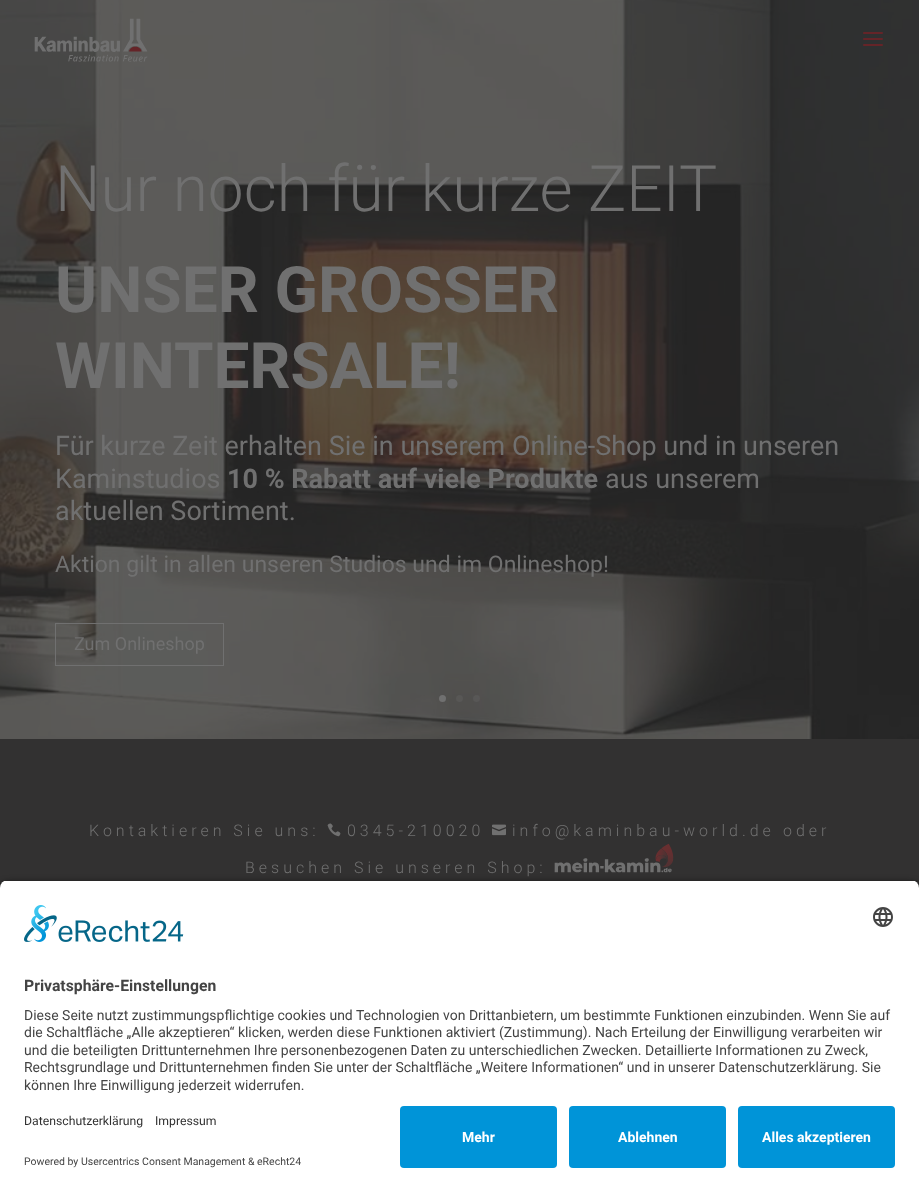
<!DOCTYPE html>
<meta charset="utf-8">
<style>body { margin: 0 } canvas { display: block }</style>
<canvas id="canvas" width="919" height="1192"></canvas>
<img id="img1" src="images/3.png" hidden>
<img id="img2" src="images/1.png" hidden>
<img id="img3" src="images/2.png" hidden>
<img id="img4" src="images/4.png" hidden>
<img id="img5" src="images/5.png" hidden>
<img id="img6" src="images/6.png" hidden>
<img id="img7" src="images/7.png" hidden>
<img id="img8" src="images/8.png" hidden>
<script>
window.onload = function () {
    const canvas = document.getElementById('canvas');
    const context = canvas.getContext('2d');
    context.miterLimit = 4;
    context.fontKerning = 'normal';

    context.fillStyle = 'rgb(255, 255, 255)';
    context.fillRect(0, 0, 919, 1192);
    context.drawImage(document.getElementById('img1'), 0, 0, 919, 739);
    context.drawImage(document.getElementById('img2'), 34, 18, 114, 44);
    context.drawImage(document.getElementById('img3'), 863, 32, 20, 14);
    context.strokeStyle = 'rgb(112, 112, 112)';
    context.strokeRect(55.5, 623.5, 168, 42);
    context.fillStyle = 'rgb(112, 112, 112)';
    context.beginPath();
    context.arc(442.5, 698.5, 3.5, 0, 2 * Math.PI);
    context.fill();
    context.fillStyle = 'rgba(112, 112, 112, 0.25)';
    context.beginPath();
    context.arc(459.5, 698.5, 3.5, 0, 2 * Math.PI);
    context.fill();
    context.beginPath();
    context.arc(476.5, 698.5, 3.5, 0, 2 * Math.PI);
    context.fill();
    context.fillStyle = 'rgb(50, 49, 49)';
    context.fillRect(0, 739, 919, 149);
    context.drawImage(document.getElementById('img4'), 327, 823, 14, 14);
    context.drawImage(document.getElementById('img5'), 492, 824, 14, 12);
    context.drawImage(document.getElementById('img6'), 554, 843, 120, 30);
    context.fillStyle = 'rgba(0, 0, 0, 0.8)';
    context.filter = 'blur(3.5px)';
    context.beginPath();
    context.roundRect(0, 883, 919, 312, 8);
    context.fill();
    context.filter = 'none';
    context.save();
    context.beginPath();
    context.roundRect(0, 880, 919, 218, [8, 8, 0, 0]);
    context.clip();
    context.fillStyle = 'rgb(255, 255, 255)';
    context.fillRect(0, 881, 919, 217);
    context.restore();
    context.drawImage(document.getElementById('img7'), 24, 905, 160, 37);
    context.drawImage(document.getElementById('img8'), 873, 907, 20, 20);
    context.fillStyle = 'rgb(255, 255, 255)';
    context.fillRect(0, 1098, 919, 94);
    context.fillStyle = 'rgb(0, 148, 216)';
    context.beginPath();
    context.roundRect(400, 1106, 157, 62, 4);
    context.fill();
    context.beginPath();
    context.roundRect(569, 1106, 157, 62, 4);
    context.fill();
    context.beginPath();
    context.roundRect(738, 1106, 157, 62, 4);
    context.fill();
    context.font = '300 64px Roboto';
    context.fillStyle = 'rgb(112, 112, 112)';
    context.fillText('Nur noch für kurze ZEIT', 55, 211);
    context.font = 'bold 64px Roboto';
    context.fillText('UNSER GROSSER', 55, 312);
    context.fillText('WINTERSALE!', 55, 388);
    context.font = '27px Roboto';
    context.fillText('Für kurze Zeit erhalten Sie in unserem Online-Shop und in unseren', 55, 455);
    context.fillText('Kaminstudios', 55, 488);
    context.font = 'bold 27px Roboto';
    context.fillText('10 % Rabatt auf viele Produkte', 227, 488);
    context.font = '27px Roboto';
    context.fillText('aus unserem', 605, 488);
    context.fillText('aktuellen Sortiment.', 55, 520);
    context.font = '23px Roboto';
    context.fillText('Aktion gilt in allen unseren Studios und im Onlineshop!', 55, 572);
    context.font = '18px Roboto';
    context.fillText('Zum Onlineshop', 74, 650);
    context.letterSpacing = '4px';
    context.font = '300 16px Roboto';
    context.fillText('Kontaktieren Sie uns:', 89, 836);
    context.fillText('0345-210020', 347, 836);
    context.fillText('info@kaminbau-world.de', 512, 836);
    context.fillText('oder', 783, 836);
    context.fillText('Besuchen Sie unseren Shop:', 245, 873);
    context.letterSpacing = '0px';
    context.font = 'bold 15.75px Roboto';
    context.fillStyle = 'rgb(68, 68, 68)';
    context.fillText('Privatsphäre-Einstellungen', 24, 991);
    context.font = '14px Roboto';
    context.fillText('Diese Seite nutzt zustimmungspflichtige cookies und Technologien von Drittanbietern, um bestimmte Funktionen einzubinden. Wenn Sie auf', 24, 1020);
    context.fillText('die Schaltfläche „Alle akzeptieren“ klicken, werden diese Funktionen aktiviert (Zustimmung). Nach Erteilung der Einwilligung verarbeiten wir', 24, 1037);
    context.fillText('und die beteiligten Drittunternehmen Ihre personenbezogenen Daten zu unterschiedlichen Zwecken. Detaillierte Informationen zu Zweck,', 24, 1055);
    context.fillText('Rechtsgrundlage und Drittunternehmen finden Sie unter der Schaltfläche „Weitere Informationen“ und in unserer Datenschutzerklärung. Sie', 24, 1072);
    context.fillText('können Ihre Einwilligung jederzeit widerrufen.', 24, 1090);
    context.font = '12.25px Roboto';
    context.fillStyle = 'rgb(48, 48, 48)';
    context.fillText('Datenschutzerklärung', 24, 1125);
    context.fillText('Impressum', 155, 1125);
    context.font = '10.5px Roboto';
    context.fillStyle = 'rgb(68, 68, 68)';
    context.fillText('Powered by Usercentrics Consent Management & eRecht24', 24, 1165);
    context.font = 'bold 14px Roboto';
    context.fillStyle = 'rgb(255, 255, 255)';
    context.fillText('Mehr', 462, 1142);
    context.fillText('Ablehnen', 618, 1142);
    context.fillText('Alles akzeptieren', 762, 1142);
};
</script>
